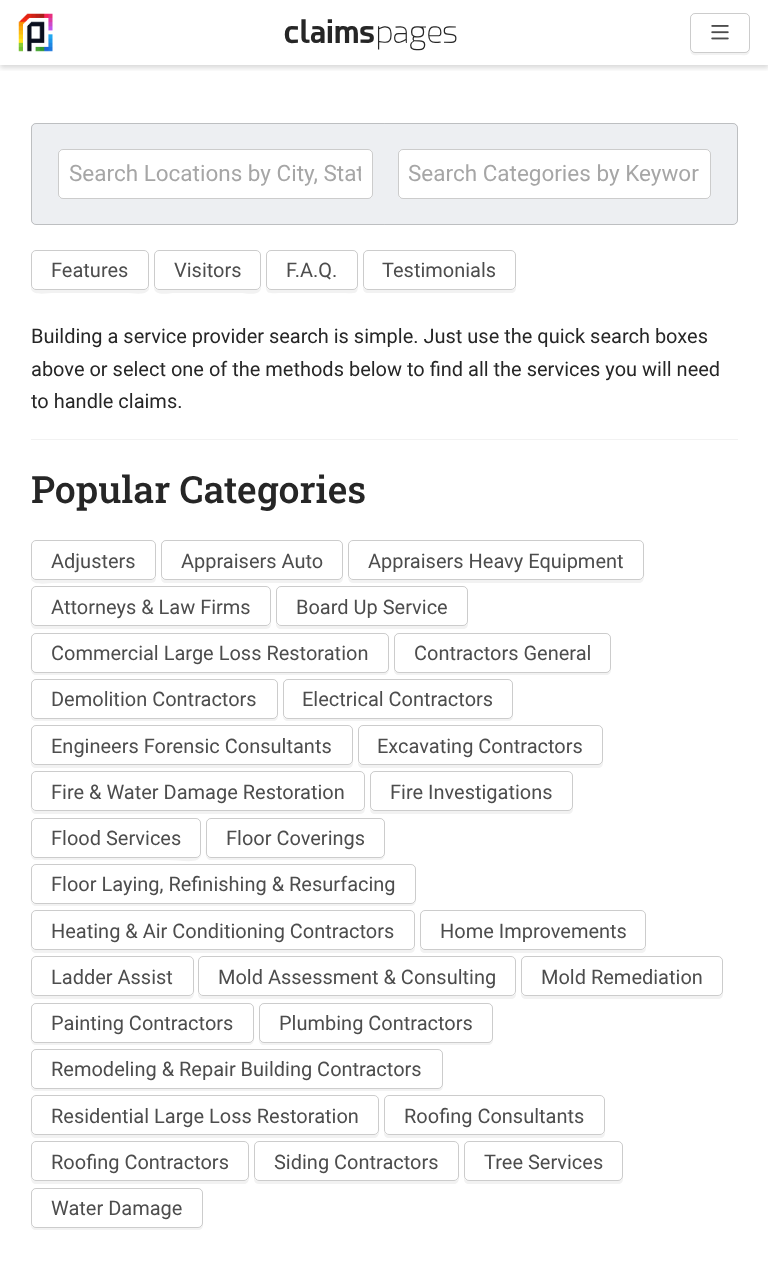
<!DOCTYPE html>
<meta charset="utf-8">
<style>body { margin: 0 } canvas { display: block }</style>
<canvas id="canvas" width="768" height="1264"></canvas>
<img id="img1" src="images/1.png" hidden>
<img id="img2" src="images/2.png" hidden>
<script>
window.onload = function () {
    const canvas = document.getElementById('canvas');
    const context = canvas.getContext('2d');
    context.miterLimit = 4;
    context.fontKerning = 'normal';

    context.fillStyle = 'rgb(255, 255, 255)';
    context.fillRect(0, 0, 768, 1264);
    context.save();
    context.beginPath();
    context.rect(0, 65, 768, 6);
    context.clip();
    context.fillStyle = 'rgba(0, 0, 0, 0.15)';
    context.filter = 'blur(2.5px)';
    context.beginPath();
    context.rect(0, 3, 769, 65);
    context.fill();
    context.filter = 'none';
    context.restore();
    context.drawImage(document.getElementById('img1'), 18, 13, 35, 39);
    context.fillStyle = 'rgb(242, 242, 242)';
    context.beginPath();
    context.moveTo(690, 48);
    context.bezierCurveTo(690, 57, 695, 55, 703, 55);
    context.lineTo(737, 55);
    context.bezierCurveTo(745, 55, 750, 57, 750, 48);
    context.bezierCurveTo(750, 50, 748, 52, 745, 52);
    context.lineTo(695, 52);
    context.bezierCurveTo(692, 52, 690, 50, 690, 48);
    context.closePath();
    context.fill();
    context.fillStyle = 'rgb(255, 255, 255)';
    context.beginPath();
    context.roundRect(690, 13, 60, 40, 5);
    context.fill();
    context.beginPath();
    context.roundRect(690.5, 13.5, 59, 39, 4.5);
    context.strokeStyle = 'rgba(0, 0, 0, 0.2)';
    context.stroke();
    context.drawImage(document.getElementById('img2'), 711, 25, 18, 15);
    context.fillStyle = 'rgb(237, 239, 242)';
    context.beginPath();
    context.roundRect(31, 123, 707, 102, 5);
    context.fill();
    context.beginPath();
    context.roundRect(31.5, 123.5, 706, 101, 4.5);
    context.stroke();
    context.fillStyle = 'rgb(255, 255, 255)';
    context.beginPath();
    context.roundRect(58, 149, 315, 50, 5);
    context.fill();
    context.beginPath();
    context.roundRect(58.5, 149.5, 314, 49, 4.5);
    context.stroke();
    context.beginPath();
    context.roundRect(398, 149, 313, 50, 5);
    context.fill();
    context.beginPath();
    context.roundRect(398.5, 149.5, 312, 49, 4.5);
    context.stroke();
    context.fillStyle = 'rgb(242, 242, 242)';
    context.beginPath();
    context.moveTo(31, 256);
    context.lineTo(31, 289);
    context.bezierCurveTo(33, 296, 47, 293, 54, 293);
    context.lineTo(126, 293);
    context.bezierCurveTo(133, 293, 147, 296, 149, 289);
    context.lineTo(149, 256);
    context.lineTo(149, 285);
    context.bezierCurveTo(149, 288, 147, 290, 144, 290);
    context.lineTo(36, 290);
    context.bezierCurveTo(33, 290, 31, 288, 31, 285);
    context.closePath();
    context.fill();
    context.beginPath();
    context.roundRect(31.5, 250.5, 117, 39, 4.5);
    context.strokeStyle = 'rgb(204, 204, 204)';
    context.stroke();
    context.beginPath();
    context.moveTo(154, 287);
    context.bezierCurveTo(154, 297, 168, 293, 175, 293);
    context.lineTo(240, 293);
    context.bezierCurveTo(247, 293, 261, 297, 261, 287);
    context.bezierCurveTo(260, 289, 258, 290, 256, 290);
    context.lineTo(159, 290);
    context.bezierCurveTo(157, 290, 155, 289, 154, 287);
    context.closePath();
    context.fill();
    context.beginPath();
    context.roundRect(154.5, 250.5, 106, 39, 4.5);
    context.stroke();
    context.beginPath();
    context.moveTo(266, 256);
    context.lineTo(266, 278);
    context.bezierCurveTo(266, 296, 265, 293, 285, 293);
    context.lineTo(339, 293);
    context.bezierCurveTo(359, 293, 358, 296, 358, 278);
    context.lineTo(358, 263);
    context.bezierCurveTo(358, 261, 358, 258, 358, 256);
    context.lineTo(358, 285);
    context.bezierCurveTo(358, 288, 355, 290, 352, 290);
    context.lineTo(271, 290);
    context.bezierCurveTo(268, 290, 266, 288, 266, 285);
    context.closePath();
    context.fill();
    context.fillStyle = 'rgb(255, 255, 255)';
    context.beginPath();
    context.roundRect(266, 250, 92, 40, 5);
    context.fill();
    context.beginPath();
    context.roundRect(266.5, 250.5, 91, 39, 4.5);
    context.strokeStyle = 'rgba(0, 0, 0, 0.2)';
    context.stroke();
    context.fillStyle = 'rgb(242, 242, 242)';
    context.beginPath();
    context.moveTo(363, 287);
    context.lineTo(363, 288);
    context.bezierCurveTo(363, 291, 365, 293, 368, 293);
    context.lineTo(511, 293);
    context.bezierCurveTo(514, 293, 516, 291, 516, 288);
    context.lineTo(516, 287);
    context.bezierCurveTo(515, 289, 513, 290, 511, 290);
    context.lineTo(368, 290);
    context.bezierCurveTo(366, 290, 364, 289, 363, 287);
    context.closePath();
    context.fill();
    context.beginPath();
    context.roundRect(363.5, 250.5, 152, 39, 4.5);
    context.strokeStyle = 'rgb(204, 204, 204)';
    context.stroke();
    context.fillRect(31, 439, 707, 1);
    context.beginPath();
    context.moveTo(31, 546);
    context.lineTo(31, 579);
    context.bezierCurveTo(33, 586, 48, 583, 55, 583);
    context.lineTo(151, 583);
    context.bezierCurveTo(155, 583, 156, 580, 156, 577);
    context.bezierCurveTo(155, 579, 153, 580, 151, 580);
    context.lineTo(36, 580);
    context.bezierCurveTo(33, 580, 31, 578, 31, 575);
    context.closePath();
    context.fill();
    context.beginPath();
    context.roundRect(31.5, 540.5, 124, 39, 4.5);
    context.stroke();
    context.beginPath();
    context.moveTo(161, 546);
    context.lineTo(161, 578);
    context.bezierCurveTo(161, 581, 163, 583, 166, 583);
    context.lineTo(338, 583);
    context.bezierCurveTo(341, 583, 343, 581, 343, 578);
    context.lineTo(343, 548);
    context.lineTo(342, 546);
    context.lineTo(342, 575);
    context.bezierCurveTo(342, 578, 340, 580, 338, 580);
    context.lineTo(166, 580);
    context.bezierCurveTo(163, 580, 161, 578, 161, 575);
    context.closePath();
    context.fill();
    context.fillStyle = 'rgb(255, 255, 255)';
    context.beginPath();
    context.roundRect(161, 540, 182, 40, 5);
    context.fill();
    context.beginPath();
    context.roundRect(161.5, 540.5, 181, 39, 4.5);
    context.strokeStyle = 'rgba(0, 0, 0, 0.2)';
    context.stroke();
    context.fillStyle = 'rgb(242, 242, 242)';
    context.beginPath();
    context.moveTo(348, 577);
    context.bezierCurveTo(348, 580, 350, 583, 353, 583);
    context.lineTo(639, 583);
    context.bezierCurveTo(646, 583, 644, 572, 644, 568);
    context.lineTo(644, 546);
    context.lineTo(644, 575);
    context.bezierCurveTo(644, 578, 642, 580, 639, 580);
    context.lineTo(352, 580);
    context.bezierCurveTo(351, 580, 349, 579, 348, 577);
    context.closePath();
    context.fill();
    context.beginPath();
    context.roundRect(348.5, 540.5, 295, 39, 4.5);
    context.strokeStyle = 'rgb(204, 204, 204)';
    context.stroke();
    context.beginPath();
    context.moveTo(31, 592);
    context.lineTo(31, 614);
    context.bezierCurveTo(31, 618, 29, 629, 36, 629);
    context.lineTo(266, 629);
    context.bezierCurveTo(270, 629, 271, 626, 271, 623);
    context.bezierCurveTo(270, 625, 268, 626, 266, 626);
    context.lineTo(36, 626);
    context.bezierCurveTo(33, 626, 31, 624, 31, 621);
    context.closePath();
    context.fill();
    context.beginPath();
    context.roundRect(31.5, 586.5, 239, 39, 4.5);
    context.stroke();
    context.beginPath();
    context.moveTo(276, 592);
    context.lineTo(276, 624);
    context.bezierCurveTo(276, 627, 278, 629, 281, 629);
    context.lineTo(463, 629);
    context.bezierCurveTo(466, 629, 468, 627, 468, 624);
    context.lineTo(468, 594);
    context.lineTo(468, 592);
    context.lineTo(468, 621);
    context.bezierCurveTo(468, 624, 465, 626, 462, 626);
    context.lineTo(281, 626);
    context.bezierCurveTo(278, 626, 276, 624, 276, 621);
    context.closePath();
    context.fill();
    context.fillStyle = 'rgb(255, 255, 255)';
    context.beginPath();
    context.roundRect(276, 586, 192, 40, 5);
    context.fill();
    context.beginPath();
    context.roundRect(276.5, 586.5, 191, 39, 4.5);
    context.strokeStyle = 'rgba(0, 0, 0, 0.2)';
    context.stroke();
    context.fillStyle = 'rgb(242, 242, 242)';
    context.beginPath();
    context.moveTo(31, 638);
    context.lineTo(31, 660);
    context.bezierCurveTo(31, 664, 29, 675, 36, 675);
    context.lineTo(384, 675);
    context.bezierCurveTo(391, 675, 389, 664, 389, 660);
    context.lineTo(389, 638);
    context.lineTo(389, 668);
    context.bezierCurveTo(389, 670, 387, 672, 384, 672);
    context.lineTo(36, 672);
    context.bezierCurveTo(33, 672, 31, 670, 31, 668);
    context.closePath();
    context.fill();
    context.fillStyle = 'rgb(255, 255, 255)';
    context.beginPath();
    context.roundRect(31, 633, 358, 40, 5);
    context.fill();
    context.beginPath();
    context.roundRect(31.5, 633.5, 357, 39, 4.5);
    context.stroke();
    context.fillStyle = 'rgb(242, 242, 242)';
    context.beginPath();
    context.moveTo(394, 669);
    context.lineTo(394, 670);
    context.bezierCurveTo(394, 673, 396, 675, 399, 675);
    context.lineTo(606, 675);
    context.bezierCurveTo(609, 675, 611, 673, 611, 670);
    context.lineTo(611, 669);
    context.bezierCurveTo(610, 671, 608, 672, 606, 672);
    context.lineTo(399, 672);
    context.bezierCurveTo(397, 672, 395, 671, 394, 669);
    context.closePath();
    context.fill();
    context.fillStyle = 'rgb(255, 255, 255)';
    context.beginPath();
    context.roundRect(394, 633, 217, 40, 5);
    context.fill();
    context.beginPath();
    context.roundRect(394.5, 633.5, 216, 39, 4.5);
    context.stroke();
    context.fillStyle = 'rgb(242, 242, 242)';
    context.beginPath();
    context.moveTo(31, 684);
    context.lineTo(31, 716);
    context.bezierCurveTo(31, 719, 33, 721, 36, 721);
    context.lineTo(273, 721);
    context.bezierCurveTo(276, 721, 278, 719, 278, 716);
    context.lineTo(278, 686);
    context.lineTo(278, 684);
    context.lineTo(278, 714);
    context.bezierCurveTo(278, 717, 275, 719, 272, 719);
    context.lineTo(36, 719);
    context.bezierCurveTo(33, 719, 31, 717, 31, 714);
    context.closePath();
    context.fill();
    context.fillStyle = 'rgb(255, 255, 255)';
    context.beginPath();
    context.roundRect(31, 679, 247, 40, 5);
    context.fill();
    context.beginPath();
    context.roundRect(31.5, 679.5, 246, 39, 4.5);
    context.stroke();
    context.fillStyle = 'rgb(242, 242, 242)';
    context.beginPath();
    context.moveTo(283, 716);
    context.bezierCurveTo(283, 719, 285, 721, 288, 721);
    context.lineTo(508, 721);
    context.bezierCurveTo(511, 721, 513, 719, 513, 716);
    context.lineTo(513, 686);
    context.lineTo(512, 684);
    context.lineTo(512, 714);
    context.bezierCurveTo(512, 717, 510, 719, 508, 719);
    context.lineTo(288, 719);
    context.bezierCurveTo(286, 719, 284, 718, 283, 716);
    context.closePath();
    context.fill();
    context.fillStyle = 'rgb(255, 255, 255)';
    context.beginPath();
    context.roundRect(283, 679, 230, 40, 5);
    context.fill();
    context.beginPath();
    context.roundRect(283.5, 679.5, 229, 39, 4.5);
    context.stroke();
    context.fillStyle = 'rgb(242, 242, 242)';
    context.beginPath();
    context.moveTo(31, 731);
    context.lineTo(31, 763);
    context.bezierCurveTo(31, 766, 33, 768, 36, 768);
    context.lineTo(348, 768);
    context.bezierCurveTo(351, 768, 353, 766, 353, 763);
    context.lineTo(353, 733);
    context.lineTo(352, 731);
    context.lineTo(352, 760);
    context.bezierCurveTo(352, 763, 350, 765, 348, 765);
    context.lineTo(36, 765);
    context.bezierCurveTo(33, 765, 31, 763, 31, 760);
    context.closePath();
    context.fill();
    context.fillStyle = 'rgb(255, 255, 255)';
    context.beginPath();
    context.roundRect(31, 725, 322, 40, 5);
    context.fill();
    context.beginPath();
    context.roundRect(31.5, 725.5, 321, 39, 4.5);
    context.stroke();
    context.fillStyle = 'rgb(242, 242, 242)';
    context.beginPath();
    context.moveTo(358, 762);
    context.lineTo(358, 763);
    context.bezierCurveTo(358, 766, 360, 768, 363, 768);
    context.lineTo(598, 768);
    context.bezierCurveTo(601, 768, 603, 766, 603, 763);
    context.lineTo(603, 733);
    context.lineTo(602, 731);
    context.lineTo(602, 760);
    context.bezierCurveTo(602, 763, 600, 765, 598, 765);
    context.lineTo(362, 765);
    context.bezierCurveTo(361, 765, 359, 764, 358, 762);
    context.closePath();
    context.fill();
    context.fillStyle = 'rgb(255, 255, 255)';
    context.beginPath();
    context.roundRect(358, 725, 245, 40, 5);
    context.fill();
    context.beginPath();
    context.roundRect(358.5, 725.5, 244, 39, 4.5);
    context.stroke();
    context.fillStyle = 'rgb(242, 242, 242)';
    context.beginPath();
    context.moveTo(31, 777);
    context.lineTo(31, 799);
    context.bezierCurveTo(31, 803, 29, 814, 36, 814);
    context.lineTo(360, 814);
    context.bezierCurveTo(365, 814, 365, 810, 365, 806);
    context.bezierCurveTo(365, 809, 363, 811, 360, 811);
    context.lineTo(36, 811);
    context.bezierCurveTo(33, 811, 31, 809, 31, 806);
    context.closePath();
    context.fill();
    context.beginPath();
    context.roundRect(31.5, 771.5, 333, 39, 4.5);
    context.strokeStyle = 'rgb(204, 204, 204)';
    context.stroke();
    context.beginPath();
    context.moveTo(370, 806);
    context.lineTo(370, 809);
    context.bezierCurveTo(370, 812, 372, 814, 375, 814);
    context.lineTo(568, 814);
    context.bezierCurveTo(571, 814, 573, 812, 573, 809);
    context.lineTo(573, 779);
    context.lineTo(572, 777);
    context.lineTo(572, 806);
    context.bezierCurveTo(572, 809, 570, 811, 568, 811);
    context.lineTo(375, 811);
    context.bezierCurveTo(372, 811, 370, 809, 370, 806);
    context.closePath();
    context.fill();
    context.fillStyle = 'rgb(255, 255, 255)';
    context.beginPath();
    context.roundRect(370, 771, 203, 40, 5);
    context.fill();
    context.beginPath();
    context.roundRect(370.5, 771.5, 202, 39, 4.5);
    context.strokeStyle = 'rgba(0, 0, 0, 0.2)';
    context.stroke();
    context.fillStyle = 'rgb(242, 242, 242)';
    context.beginPath();
    context.moveTo(31, 823);
    context.lineTo(31, 845);
    context.bezierCurveTo(31, 849, 29, 860, 36, 860);
    context.lineTo(169, 860);
    context.bezierCurveTo(181, 860, 201, 865, 201, 854);
    context.bezierCurveTo(200, 856, 198, 858, 196, 858);
    context.lineTo(36, 858);
    context.bezierCurveTo(33, 858, 31, 855, 31, 852);
    context.closePath();
    context.fill();
    context.fillStyle = 'rgb(255, 255, 255)';
    context.beginPath();
    context.roundRect(31, 818, 170, 40, 5);
    context.fill();
    context.beginPath();
    context.roundRect(31.5, 818.5, 169, 39, 4.5);
    context.stroke();
    context.fillStyle = 'rgb(242, 242, 242)';
    context.beginPath();
    context.moveTo(206, 823);
    context.lineTo(206, 845);
    context.bezierCurveTo(206, 849, 204, 860, 211, 860);
    context.lineTo(380, 860);
    context.bezierCurveTo(384, 860, 385, 856, 385, 852);
    context.bezierCurveTo(385, 855, 383, 858, 380, 858);
    context.lineTo(211, 858);
    context.bezierCurveTo(208, 858, 206, 855, 206, 852);
    context.closePath();
    context.fill();
    context.fillStyle = 'rgb(255, 255, 255)';
    context.beginPath();
    context.roundRect(206, 818, 179, 40, 5);
    context.fill();
    context.beginPath();
    context.roundRect(206.5, 818.5, 178, 39, 4.5);
    context.stroke();
    context.fillStyle = 'rgb(242, 242, 242)';
    context.beginPath();
    context.moveTo(31, 869);
    context.lineTo(31, 891);
    context.bezierCurveTo(31, 895, 29, 906, 36, 906);
    context.lineTo(411, 906);
    context.bezierCurveTo(414, 906, 416, 903, 416, 900);
    context.bezierCurveTo(415, 902, 413, 904, 411, 904);
    context.lineTo(36, 904);
    context.bezierCurveTo(33, 904, 31, 902, 31, 899);
    context.closePath();
    context.fill();
    context.fillStyle = 'rgb(255, 255, 255)';
    context.beginPath();
    context.roundRect(31, 864, 385, 40, 5);
    context.fill();
    context.beginPath();
    context.roundRect(31.5, 864.5, 384, 39, 4.5);
    context.stroke();
    context.fillStyle = 'rgb(242, 242, 242)';
    context.beginPath();
    context.moveTo(31, 916);
    context.lineTo(31, 938);
    context.bezierCurveTo(31, 942, 29, 953, 36, 953);
    context.lineTo(410, 953);
    context.bezierCurveTo(415, 953, 415, 949, 415, 945);
    context.bezierCurveTo(415, 948, 413, 950, 410, 950);
    context.lineTo(36, 950);
    context.bezierCurveTo(33, 950, 31, 948, 31, 945);
    context.closePath();
    context.fill();
    context.beginPath();
    context.roundRect(31.5, 910.5, 383, 39, 4.5);
    context.strokeStyle = 'rgb(204, 204, 204)';
    context.stroke();
    context.beginPath();
    context.moveTo(420, 945);
    context.lineTo(420, 948);
    context.bezierCurveTo(420, 951, 422, 953, 425, 953);
    context.lineTo(641, 953);
    context.bezierCurveTo(644, 953, 646, 951, 646, 948);
    context.lineTo(646, 947);
    context.bezierCurveTo(645, 949, 643, 950, 641, 950);
    context.lineTo(425, 950);
    context.bezierCurveTo(422, 950, 420, 948, 420, 945);
    context.closePath();
    context.fill();
    context.beginPath();
    context.roundRect(420.5, 910.5, 225, 39, 4.5);
    context.stroke();
    context.beginPath();
    context.moveTo(31, 962);
    context.lineTo(31, 984);
    context.bezierCurveTo(31, 988, 29, 999, 36, 999);
    context.lineTo(189, 999);
    context.bezierCurveTo(196, 999, 194, 988, 194, 984);
    context.lineTo(194, 962);
    context.lineTo(194, 991);
    context.bezierCurveTo(194, 994, 192, 996, 189, 996);
    context.lineTo(36, 996);
    context.bezierCurveTo(33, 996, 31, 994, 31, 991);
    context.closePath();
    context.fill();
    context.beginPath();
    context.roundRect(31.5, 956.5, 162, 39, 4.5);
    context.stroke();
    context.beginPath();
    context.moveTo(198, 993);
    context.lineTo(198, 994);
    context.bezierCurveTo(198, 997, 200, 999, 203, 999);
    context.lineTo(511, 999);
    context.bezierCurveTo(514, 999, 516, 997, 516, 994);
    context.lineTo(516, 993);
    context.bezierCurveTo(515, 995, 513, 996, 511, 996);
    context.lineTo(202, 996);
    context.bezierCurveTo(201, 996, 199, 995, 198, 993);
    context.closePath();
    context.fill();
    context.beginPath();
    context.roundRect(198.5, 956.5, 317, 39, 4.5);
    context.stroke();
    context.beginPath();
    context.moveTo(521, 962);
    context.lineTo(521, 994);
    context.bezierCurveTo(521, 997, 523, 999, 526, 999);
    context.lineTo(718, 999);
    context.bezierCurveTo(721, 999, 723, 997, 723, 994);
    context.lineTo(723, 964);
    context.lineTo(722, 962);
    context.lineTo(722, 991);
    context.bezierCurveTo(722, 994, 720, 996, 718, 996);
    context.lineTo(526, 996);
    context.bezierCurveTo(523, 996, 521, 994, 521, 991);
    context.closePath();
    context.fill();
    context.fillStyle = 'rgb(255, 255, 255)';
    context.beginPath();
    context.roundRect(521, 956, 202, 40, 5);
    context.fill();
    context.beginPath();
    context.roundRect(521.5, 956.5, 201, 39, 4.5);
    context.strokeStyle = 'rgba(0, 0, 0, 0.2)';
    context.stroke();
    context.fillStyle = 'rgb(242, 242, 242)';
    context.beginPath();
    context.moveTo(31, 1008);
    context.lineTo(31, 1030);
    context.bezierCurveTo(31, 1034, 29, 1045, 36, 1045);
    context.lineTo(249, 1045);
    context.bezierCurveTo(256, 1045, 254, 1034, 254, 1030);
    context.lineTo(254, 1008);
    context.lineTo(254, 1038);
    context.bezierCurveTo(254, 1040, 252, 1042, 249, 1042);
    context.lineTo(36, 1042);
    context.bezierCurveTo(33, 1042, 31, 1040, 31, 1038);
    context.closePath();
    context.fill();
    context.fillStyle = 'rgb(255, 255, 255)';
    context.beginPath();
    context.roundRect(31, 1003, 223, 40, 5);
    context.fill();
    context.beginPath();
    context.roundRect(31.5, 1003.5, 222, 39, 4.5);
    context.stroke();
    context.fillStyle = 'rgb(242, 242, 242)';
    context.beginPath();
    context.moveTo(259, 1039);
    context.lineTo(259, 1040);
    context.bezierCurveTo(259, 1043, 261, 1045, 264, 1045);
    context.lineTo(488, 1045);
    context.bezierCurveTo(491, 1045, 493, 1043, 493, 1040);
    context.lineTo(493, 1010);
    context.lineTo(492, 1008);
    context.lineTo(492, 1038);
    context.bezierCurveTo(492, 1040, 490, 1042, 488, 1042);
    context.lineTo(264, 1042);
    context.bezierCurveTo(262, 1042, 260, 1041, 259, 1039);
    context.closePath();
    context.fill();
    context.fillStyle = 'rgb(255, 255, 255)';
    context.beginPath();
    context.roundRect(259, 1003, 234, 40, 5);
    context.fill();
    context.beginPath();
    context.roundRect(259.5, 1003.5, 233, 39, 4.5);
    context.stroke();
    context.fillStyle = 'rgb(242, 242, 242)';
    context.beginPath();
    context.moveTo(31, 1054);
    context.lineTo(31, 1086);
    context.bezierCurveTo(31, 1089, 33, 1091, 36, 1091);
    context.lineTo(438, 1091);
    context.bezierCurveTo(441, 1091, 443, 1089, 443, 1086);
    context.lineTo(443, 1056);
    context.lineTo(442, 1054);
    context.lineTo(442, 1084);
    context.bezierCurveTo(442, 1087, 440, 1089, 438, 1089);
    context.lineTo(36, 1089);
    context.bezierCurveTo(33, 1089, 31, 1087, 31, 1084);
    context.closePath();
    context.fill();
    context.fillStyle = 'rgb(255, 255, 255)';
    context.beginPath();
    context.roundRect(31, 1049, 412, 40, 5);
    context.fill();
    context.beginPath();
    context.roundRect(31.5, 1049.5, 411, 39, 4.5);
    context.stroke();
    context.fillStyle = 'rgb(242, 242, 242)';
    context.beginPath();
    context.moveTo(31, 1101);
    context.lineTo(31, 1123);
    context.bezierCurveTo(31, 1127, 29, 1138, 36, 1138);
    context.lineTo(374, 1138);
    context.bezierCurveTo(381, 1138, 379, 1127, 379, 1123);
    context.lineTo(379, 1101);
    context.lineTo(379, 1130);
    context.bezierCurveTo(379, 1133, 377, 1135, 374, 1135);
    context.lineTo(36, 1135);
    context.bezierCurveTo(33, 1135, 31, 1133, 31, 1130);
    context.closePath();
    context.fill();
    context.beginPath();
    context.roundRect(31.5, 1095.5, 347, 39, 4.5);
    context.strokeStyle = 'rgb(204, 204, 204)';
    context.stroke();
    context.beginPath();
    context.moveTo(384, 1132);
    context.lineTo(384, 1133);
    context.bezierCurveTo(384, 1136, 386, 1138, 389, 1138);
    context.lineTo(600, 1138);
    context.bezierCurveTo(603, 1138, 605, 1136, 605, 1133);
    context.lineTo(605, 1130);
    context.bezierCurveTo(605, 1133, 603, 1135, 600, 1135);
    context.lineTo(389, 1135);
    context.bezierCurveTo(387, 1135, 385, 1134, 384, 1132);
    context.closePath();
    context.fill();
    context.beginPath();
    context.roundRect(384.5, 1095.5, 220, 39, 4.5);
    context.stroke();
    context.beginPath();
    context.moveTo(31, 1147);
    context.lineTo(31, 1169);
    context.bezierCurveTo(31, 1173, 29, 1184, 36, 1184);
    context.lineTo(244, 1184);
    context.bezierCurveTo(251, 1184, 249, 1173, 249, 1169);
    context.lineTo(249, 1147);
    context.lineTo(249, 1176);
    context.bezierCurveTo(249, 1179, 247, 1181, 244, 1181);
    context.lineTo(36, 1181);
    context.bezierCurveTo(33, 1181, 31, 1179, 31, 1176);
    context.closePath();
    context.fill();
    context.beginPath();
    context.roundRect(31.5, 1141.5, 217, 39, 4.5);
    context.stroke();
    context.beginPath();
    context.moveTo(254, 1178);
    context.bezierCurveTo(254, 1181, 255, 1184, 259, 1184);
    context.lineTo(454, 1184);
    context.bezierCurveTo(461, 1184, 459, 1173, 459, 1169);
    context.lineTo(459, 1147);
    context.lineTo(459, 1176);
    context.bezierCurveTo(459, 1179, 457, 1181, 454, 1181);
    context.lineTo(259, 1181);
    context.bezierCurveTo(257, 1181, 255, 1180, 254, 1178);
    context.closePath();
    context.fill();
    context.beginPath();
    context.roundRect(254.5, 1141.5, 204, 39, 4.5);
    context.stroke();
    context.beginPath();
    context.moveTo(464, 1178);
    context.lineTo(464, 1179);
    context.bezierCurveTo(464, 1182, 466, 1184, 469, 1184);
    context.lineTo(618, 1184);
    context.bezierCurveTo(621, 1184, 623, 1182, 623, 1179);
    context.lineTo(623, 1149);
    context.lineTo(622, 1147);
    context.lineTo(622, 1176);
    context.bezierCurveTo(622, 1179, 620, 1181, 618, 1181);
    context.lineTo(469, 1181);
    context.bezierCurveTo(467, 1181, 465, 1180, 464, 1178);
    context.closePath();
    context.fill();
    context.fillStyle = 'rgb(255, 255, 255)';
    context.beginPath();
    context.roundRect(464, 1141, 159, 40, 5);
    context.fill();
    context.beginPath();
    context.roundRect(464.5, 1141.5, 158, 39, 4.5);
    context.strokeStyle = 'rgba(0, 0, 0, 0.2)';
    context.stroke();
    context.fillStyle = 'rgb(242, 242, 242)';
    context.beginPath();
    context.moveTo(31, 1193);
    context.lineTo(31, 1225);
    context.bezierCurveTo(31, 1228, 33, 1230, 36, 1230);
    context.lineTo(198, 1230);
    context.bezierCurveTo(201, 1230, 203, 1228, 203, 1225);
    context.lineTo(203, 1195);
    context.lineTo(202, 1193);
    context.lineTo(202, 1222);
    context.bezierCurveTo(202, 1225, 200, 1228, 198, 1228);
    context.lineTo(36, 1228);
    context.bezierCurveTo(33, 1228, 31, 1225, 31, 1222);
    context.closePath();
    context.fill();
    context.fillStyle = 'rgb(255, 255, 255)';
    context.beginPath();
    context.roundRect(31, 1188, 172, 40, 5);
    context.fill();
    context.beginPath();
    context.roundRect(31.5, 1188.5, 171, 39, 4.5);
    context.stroke();
    context.font = 'bold 31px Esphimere';
    context.fillStyle = 'rgb(38, 38, 38)';
    context.fillText('claims', 284, 43);
    context.font = '200 31px Esphimere';
    context.fillText('pages', 376, 43);
    context.save();
    context.beginPath();
    context.rect(69, 160, 292, 26);
    context.clip();
    context.font = '22.5px Roboto';
    context.fillStyle = 'rgb(166, 166, 166)';
    context.fillText('Search Locations by City, Stat', 69, 181);
    context.restore();
    context.font = '22.5px Roboto';
    context.fillStyle = 'rgb(166, 166, 166)';
    context.fillText('Search Categories by Keywor', 408, 181);
    context.font = '20px Roboto';
    context.fillStyle = 'rgb(77, 77, 77)';
    context.fillText('Features', 51, 277);
    context.fillText('Visitors', 174, 277);
    context.fillText('F.A.Q.', 286, 277);
    context.fillText('Testimonials', 382, 277);
    context.fillStyle = 'rgb(38, 38, 38)';
    context.fillText('Building a service provider search is simple. Just use the quick search boxes', 31, 343);
    context.fillText('above or select one of the methods below to find all the services you will need', 31, 376);
    context.fillText('to handle claims.', 31, 408);
    context.font = '500 37.5px Roboto Slab';
    context.fillText('Popular Categories', 31, 503);
    context.font = '20px Roboto';
    context.fillStyle = 'rgb(77, 77, 77)';
    context.fillText('Adjusters', 51, 568);
    context.fillText('Appraisers Auto', 181, 568);
    context.fillText('Appraisers Heavy Equipment', 368, 568);
    context.fillText('Attorneys & Law Firms', 51, 614);
    context.fillText('Board Up Service', 296, 614);
    context.fillText('Commercial Large Loss Restoration', 51, 660);
    context.fillText('Contractors General', 414, 660);
    context.fillText('Demolition Contractors', 51, 706);
    context.fillText('Electrical Contractors', 302, 706);
    context.fillText('Engineers Forensic Consultants', 51, 753);
    context.fillText('Excavating Contractors', 377, 753);
    context.fillText('Fire & Water Damage Restoration', 51, 799);
    context.fillText('Fire Investigations', 390, 799);
    context.fillText('Flood Services', 51, 845);
    context.fillText('Floor Coverings', 226, 845);
    context.fillText('Floor Laying, Refinishing & Resurfacing', 51, 891);
    context.fillText('Heating & Air Conditioning Contractors', 51, 938);
    context.fillText('Home Improvements', 440, 938);
    context.fillText('Ladder Assist', 51, 984);
    context.fillText('Mold Assessment & Consulting', 218, 984);
    context.fillText('Mold Remediation', 541, 984);
    context.fillText('Painting Contractors', 51, 1030);
    context.fillText('Plumbing Contractors', 279, 1030);
    context.fillText('Remodeling & Repair Building Contractors', 51, 1076);
    context.fillText('Residential Large Loss Restoration', 51, 1123);
    context.fillText('Roofing Consultants', 404, 1123);
    context.fillText('Roofing Contractors', 51, 1169);
    context.fillText('Siding Contractors', 274, 1169);
    context.fillText('Tree Services', 484, 1169);
    context.fillText('Water Damage', 51, 1215);
};
</script>
